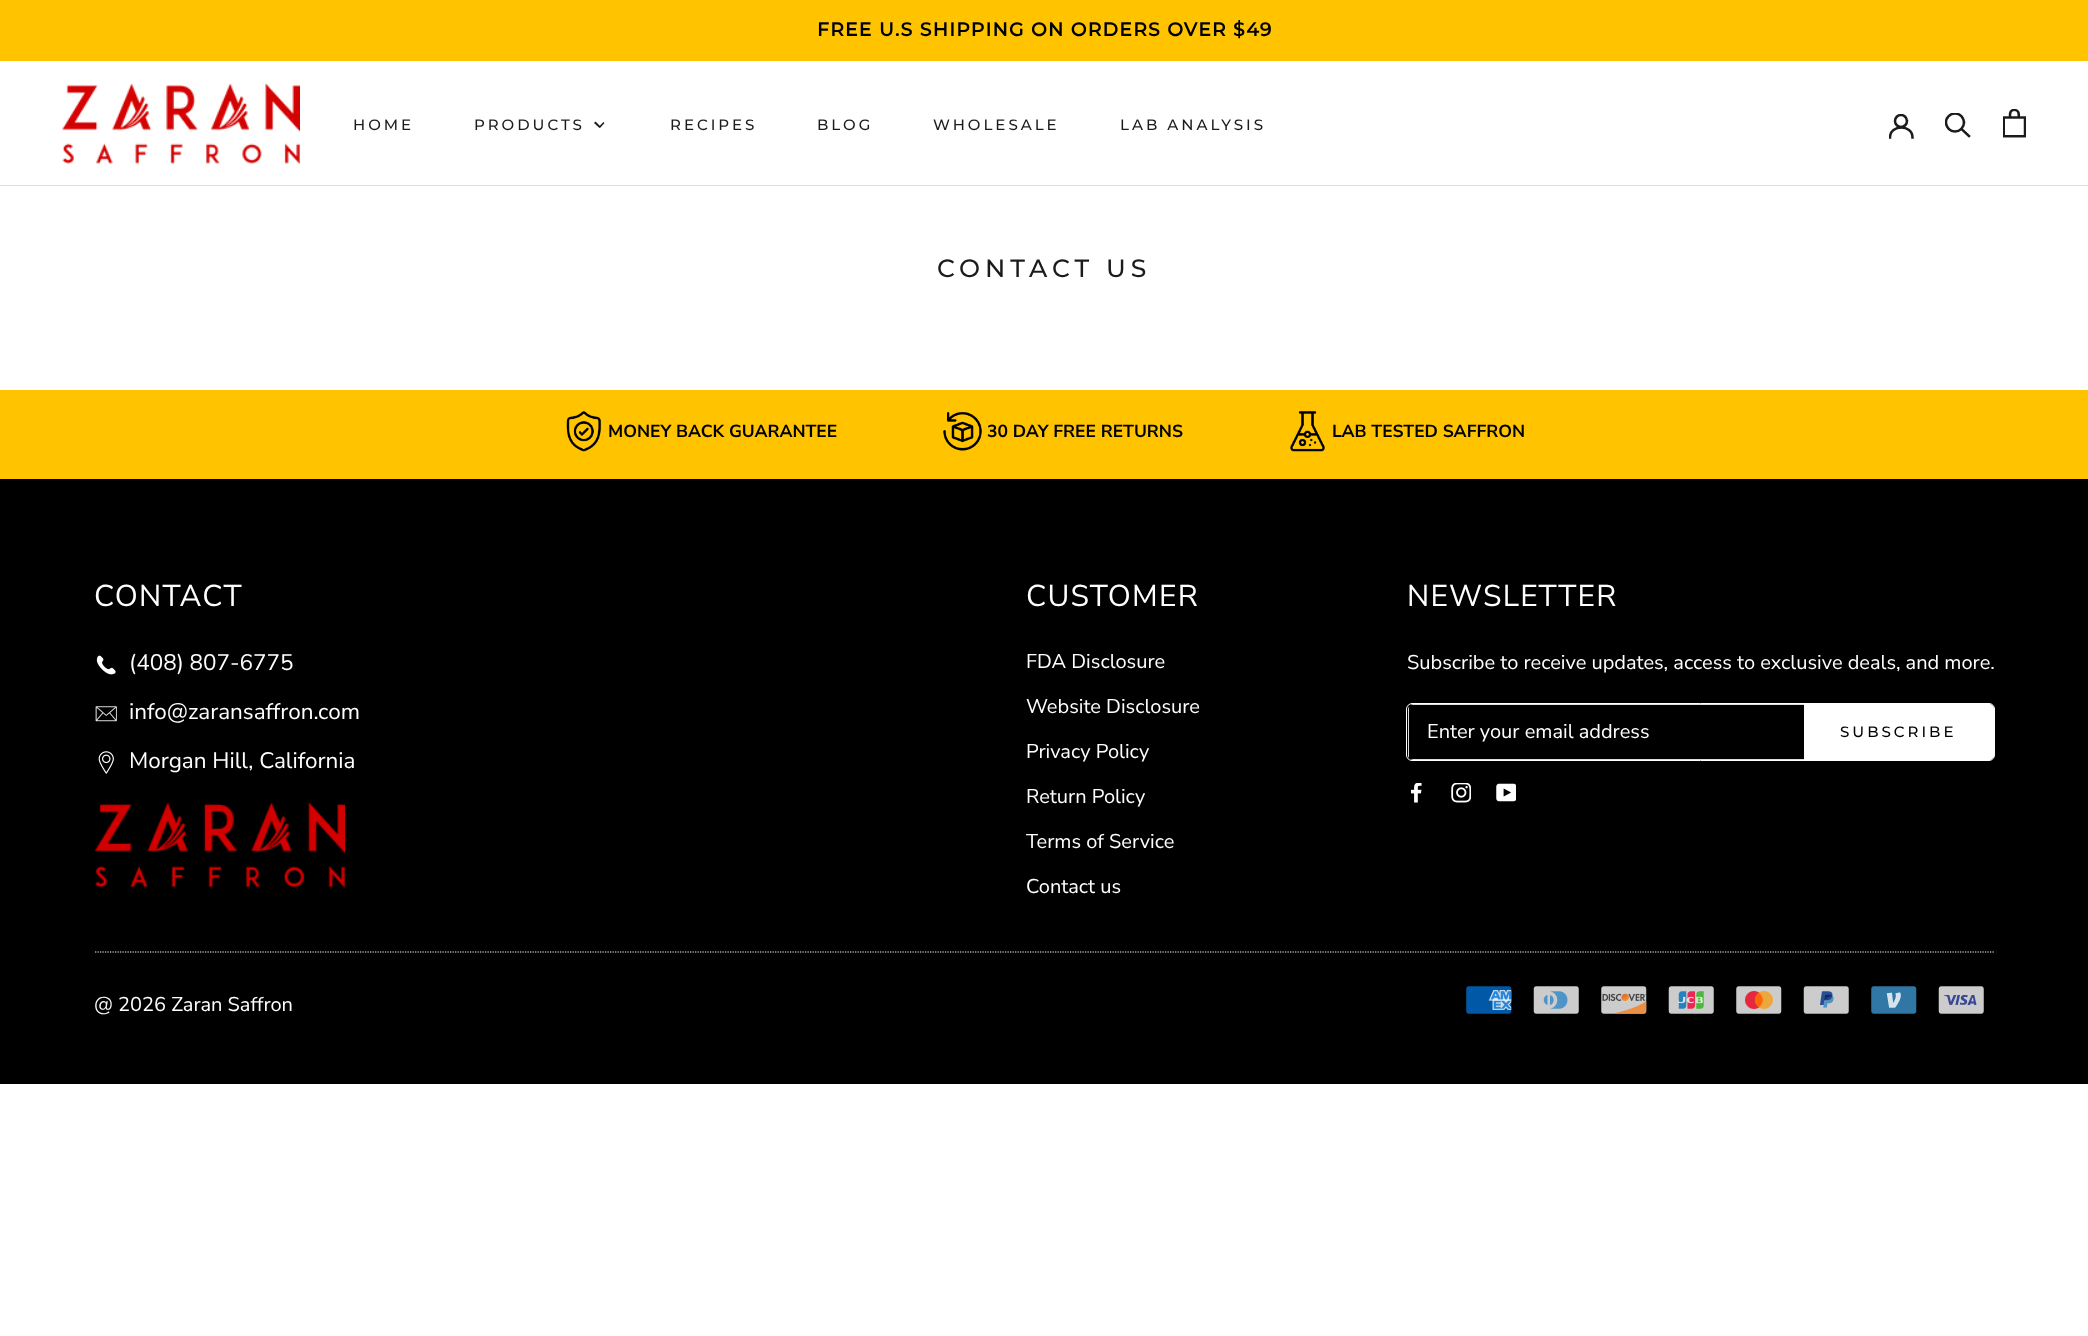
<!DOCTYPE html>
<meta charset="utf-8">
<style>body { margin: 0 } canvas { display: block }</style>
<canvas id="canvas" width="2088" height="1336"></canvas>
<img id="img1" src="images/1.png" hidden>
<img id="img2" src="images/2.png" hidden>
<img id="img3" src="images/3.png" hidden>
<img id="img4" src="images/4.png" hidden>
<img id="img5" src="images/5.png" hidden>
<img id="img6" src="images/6.png" hidden>
<img id="img7" src="images/7.png" hidden>
<img id="img8" src="images/8.png" hidden>
<img id="img9" src="images/9.png" hidden>
<img id="img10" src="images/10.png" hidden>
<img id="img11" src="images/11.png" hidden>
<img id="img12" src="images/12.png" hidden>
<img id="img13" src="images/13.png" hidden>
<img id="img14" src="images/14.png" hidden>
<img id="img15" src="images/15.png" hidden>
<img id="img16" src="images/16.png" hidden>
<img id="img17" src="images/17.png" hidden>
<img id="img18" src="images/18.png" hidden>
<img id="img19" src="images/19.png" hidden>
<img id="img20" src="images/20.png" hidden>
<script>
window.onload = function () {
    const canvas = document.getElementById('canvas');
    const context = canvas.getContext('2d');
    context.miterLimit = 4;
    context.fontKerning = 'normal';

    context.fillStyle = 'rgb(255, 255, 255)';
    context.fillRect(0, 0, 2088, 1336);
    context.fillStyle = 'rgb(255, 195, 0)';
    context.fillRect(0, 0, 2088, 61);
    context.fillStyle = 'rgb(221, 221, 221)';
    context.fillRect(0, 185, 2088, 1);
    context.drawImage(document.getElementById('img1'), 62, 83, 238, 81);
    context.fillStyle = 'rgb(28, 27, 27)';
    context.beginPath();
    context.moveTo(603.5, 122);
    context.lineTo(604.5, 123);
    context.lineTo(600, 128);
    context.lineTo(599, 126.5);
    context.closePath();
    context.fill();
    context.beginPath();
    context.moveTo(595.5, 121.5);
    context.lineTo(600.5, 126.5);
    context.lineTo(599.5, 128);
    context.lineTo(594, 123);
    context.closePath();
    context.fill();
    context.save();
    context.beginPath();
    context.rect(1889, 114, 25, 25);
    context.clip();
    context.beginPath();
    context.moveTo(1890, 137.5);
    context.bezierCurveTo(1890, 124, 1912.5, 124, 1912.5, 137.5);
    context.strokeStyle = 'rgb(28, 27, 27)';
    context.lineWidth = 2.5;
    context.lineCap = 'square';
    context.stroke();
    context.beginPath();
    context.arc(1901, 121, 6, 0, 2 * Math.PI);
    context.stroke();
    context.restore();
    context.beginPath();
    context.moveTo(1969, 136);
    context.lineTo(1961.5, 129);
    context.strokeStyle = 'rgb(28, 27, 27)';
    context.lineWidth = 2.5;
    context.lineCap = 'square';
    context.stroke();
    context.save();
    context.beginPath();
    context.rect(1945, 113, 26, 26);
    context.clip();
    context.beginPath();
    context.arc(1955, 122.5, 9, 0, 2 * Math.PI);
    context.stroke();
    context.restore();
    context.drawImage(document.getElementById('img2'), 2003, 109, 23, 29);
    context.fillStyle = 'rgb(255, 195, 0)';
    context.fillRect(0, 390, 2088, 89);
    context.drawImage(document.getElementById('img3'), 566, 411, 36, 41);
    context.drawImage(document.getElementById('img4'), 943, 412, 39, 39);
    context.drawImage(document.getElementById('img5'), 1290, 411, 35, 41);
    context.fillStyle = 'rgb(0, 0, 0)';
    context.fillRect(0, 479, 2088, 605);
    context.drawImage(document.getElementById('img6'), 96, 655, 20, 20);
    context.drawImage(document.getElementById('img7'), 95, 706, 22, 16);
    context.drawImage(document.getElementById('img8'), 98, 751, 16, 23);
    context.drawImage(document.getElementById('img9'), 95, 802, 250, 86);
    context.beginPath();
    context.roundRect(1406.5, 703.5, 588, 57, 5.5);
    context.strokeStyle = 'rgb(255, 255, 255)';
    context.lineWidth = 1;
    context.stroke();
    context.fillStyle = 'rgb(221, 221, 221)';
    context.beginPath();
    context.moveTo(1408, 709);
    context.lineTo(1408, 755);
    context.bezierCurveTo(1408, 756, 1408, 757, 1409, 758);
    context.lineTo(1409, 706);
    context.closePath();
    context.moveTo(1413, 704);
    context.lineTo(1410, 705);
    context.lineTo(1805, 705);
    context.lineTo(1805, 759);
    context.lineTo(1410, 759);
    context.lineTo(1413, 760);
    context.lineTo(1806, 760);
    context.lineTo(1806, 704);
    context.closePath();
    context.fill('evenodd');
    context.fillStyle = 'rgb(255, 255, 255)';
    context.beginPath();
    context.roundRect(1804, 704, 190, 56, [0, 5, 5, 0]);
    context.fill();
    context.beginPath();
    context.moveTo(1804, 704);
    context.lineTo(1804, 760);
    context.lineTo(1989, 760);
    context.bezierCurveTo(1990, 760, 1991, 760, 1992, 759);
    context.lineTo(1805, 759);
    context.lineTo(1805, 705);
    context.lineTo(1992, 705);
    context.lineTo(1989, 704);
    context.closePath();
    context.moveTo(1994, 709);
    context.lineTo(1993, 706);
    context.lineTo(1993, 758);
    context.bezierCurveTo(1994, 757, 1994, 756, 1994, 755);
    context.closePath();
    context.fill('evenodd');
    context.drawImage(document.getElementById('img10'), 1410, 783, 12, 20);
    context.drawImage(document.getElementById('img11'), 1451, 783, 20, 20);
    context.drawImage(document.getElementById('img12'), 1496, 783, 20, 19);
    context.beginPath();
    context.moveTo(95, 952);
    context.lineTo(1995, 952);
    context.lineWidth = 1.2;
    context.lineCap = 'butt';
    context.setLineDash([1.25, 1.25]);
    context.stroke();
    context.drawImage(document.getElementById('img13'), 1466, 986, 46, 28);
    context.drawImage(document.getElementById('img14'), 1533, 986, 46, 28);
    context.drawImage(document.getElementById('img15'), 1601, 986, 46, 28);
    context.drawImage(document.getElementById('img16'), 1668, 986, 46, 28);
    context.drawImage(document.getElementById('img17'), 1736, 986, 46, 28);
    context.drawImage(document.getElementById('img18'), 1803, 986, 46, 28);
    context.drawImage(document.getElementById('img19'), 1871, 986, 46, 28);
    context.drawImage(document.getElementById('img20'), 1938, 986, 46, 28);
    context.letterSpacing = '1.25px';
    context.font = 'bold 18.75px Montserrat';
    context.fillStyle = 'rgb(0, 0, 0)';
    context.fillText('FREE U.S SHIPPING ON ORDERS OVER $49', 817, 36);
    context.letterSpacing = '3px';
    context.font = '500 15px Montserrat';
    context.fillStyle = 'rgb(28, 27, 27)';
    context.fillText('HOME', 353, 130);
    context.fillText('PRODUCTS', 474, 130);
    context.fillText('RECIPES', 670, 130);
    context.fillText('BLOG', 817, 130);
    context.fillText('WHOLESALE', 933, 130);
    context.fillText('LAB ANALYSIS', 1120, 130);
    context.letterSpacing = '5px';
    context.font = '500 25px Montserrat';
    context.fillText('CONTACT US', 937, 277);
    context.letterSpacing = '0px';
    context.font = 'bold 17.5px Nunito Sans';
    context.fillStyle = 'rgb(0, 0, 0)';
    context.fillText('MONEY BACK GUARANTEE', 608, 437);
    context.fillText('30 DAY FREE RETURNS', 987, 437);
    context.fillText('LAB TESTED SAFFRON', 1332, 437);
    context.letterSpacing = '1.25px';
    context.font = '30px Nunito Sans';
    context.fillStyle = 'rgb(255, 255, 255)';
    context.fillText('CONTACT', 94, 606);
    context.letterSpacing = '0px';
    context.font = '22.5px Nunito Sans';
    context.fillText('(408) 807-6775', 129, 670);
    context.fillText('info@zaransaffron.com', 129, 719);
    context.fillText('Morgan Hill, California', 129, 768);
    context.letterSpacing = '1.25px';
    context.font = '30px Nunito Sans';
    context.fillText('CUSTOMER', 1026, 606);
    context.letterSpacing = '0px';
    context.font = '20px Nunito Sans';
    context.fillText('FDA Disclosure', 1026, 668);
    context.fillText('Website Disclosure', 1026, 713);
    context.fillText('Privacy Policy', 1026, 758);
    context.fillText('Return Policy', 1026, 803);
    context.fillText('Terms of Service', 1026, 848);
    context.fillText('Contact us', 1026, 893);
    context.letterSpacing = '1.25px';
    context.font = '30px Nunito Sans';
    context.fillText('NEWSLETTER', 1407, 606);
    context.letterSpacing = '0px';
    context.font = '20px Nunito Sans';
    context.fillText('Subscribe to receive updates, access to exclusive deals, and more.', 1407, 669);
    context.fillText('Enter your email address', 1427, 738);
    context.letterSpacing = '3px';
    context.font = '500 15px Montserrat';
    context.fillStyle = 'rgb(0, 0, 0)';
    context.fillText('SUBSCRIBE', 1840, 737);
    context.letterSpacing = '0px';
    context.font = '20px Nunito Sans';
    context.fillStyle = 'rgb(255, 255, 255)';
    context.fillText('@ 2026 Zaran Saffron', 94, 1011);
};
</script>
